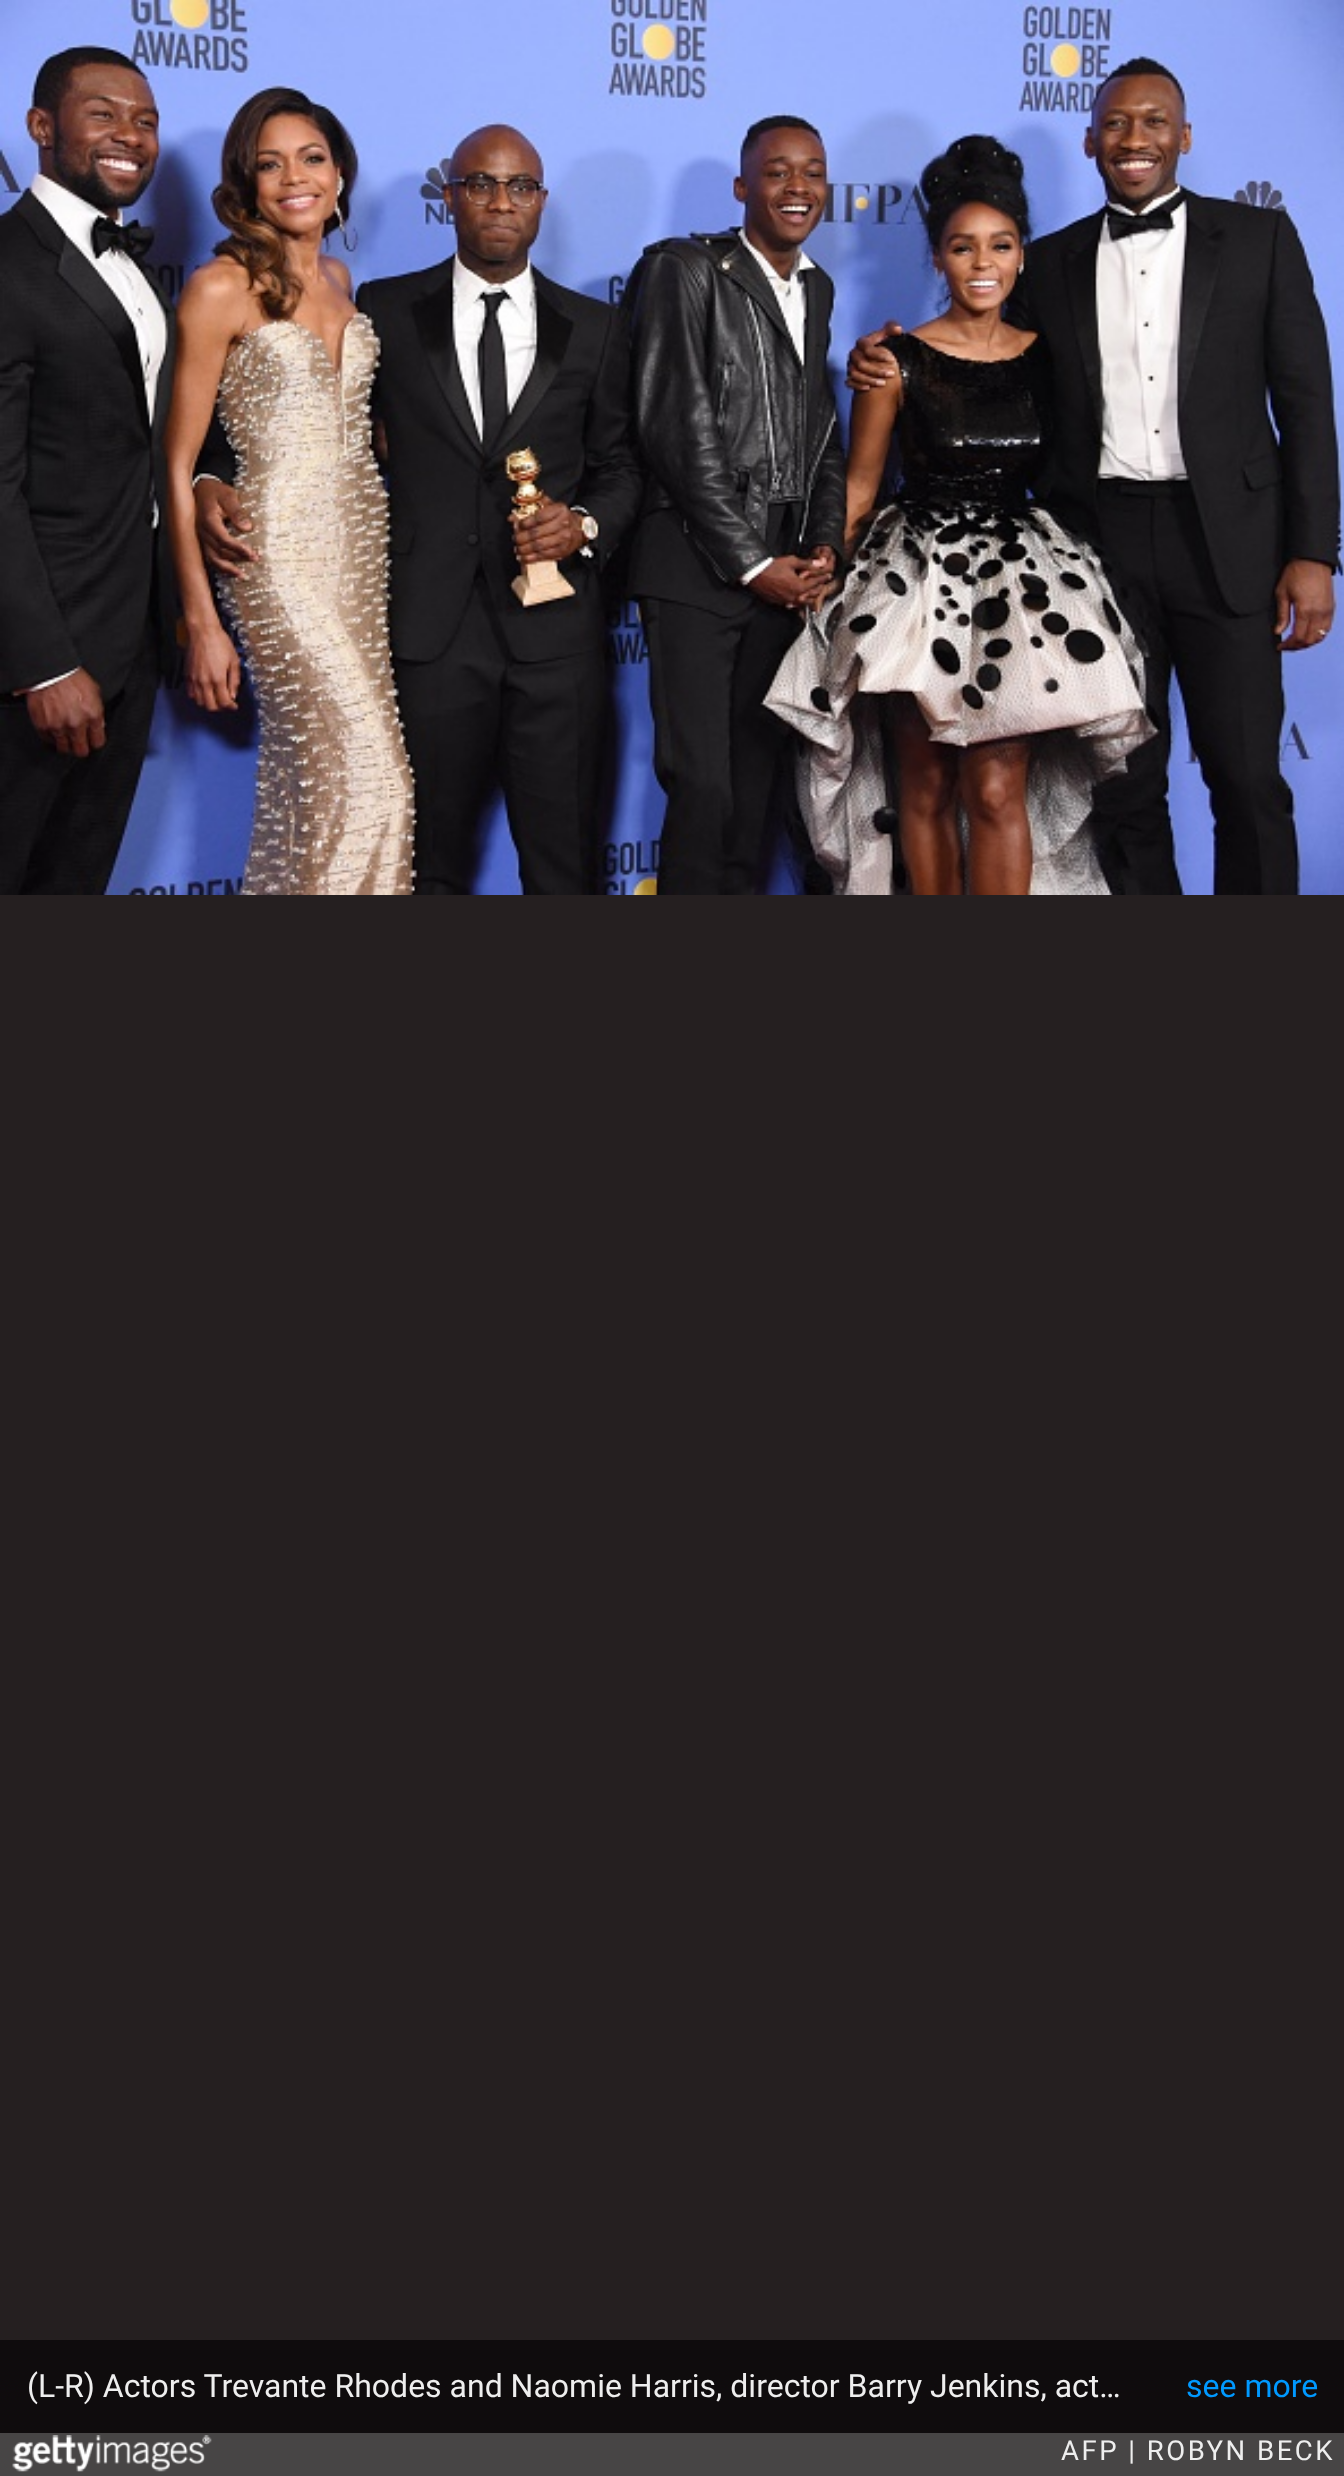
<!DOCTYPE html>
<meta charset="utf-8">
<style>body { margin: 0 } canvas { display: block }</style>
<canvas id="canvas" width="1344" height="2476"></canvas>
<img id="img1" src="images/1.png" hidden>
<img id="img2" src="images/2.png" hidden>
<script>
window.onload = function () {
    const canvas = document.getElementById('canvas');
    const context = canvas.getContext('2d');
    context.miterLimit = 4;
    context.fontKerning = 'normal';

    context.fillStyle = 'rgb(37, 31, 32)';
    context.fillRect(0, 0, 1344, 2476);
    context.drawImage(document.getElementById('img1'), 0, 0, 1344, 895);
    context.fillStyle = 'rgb(15, 12, 13)';
    context.fillRect(0, 2340, 1344, 93);
    context.fillStyle = 'rgb(71, 69, 69)';
    context.fillRect(0, 2433, 1344, 43);
    context.drawImage(document.getElementById('img2'), 12, 2435, 200, 37);
    context.font = '32px Roboto';
    context.fillStyle = 'rgb(238, 238, 238)';
    context.fillText('(L-R) Actors Trevante Rhodes and Naomie Harris, director Barry Jenkins, act…', 27, 2397);
    context.fillStyle = 'rgb(0, 153, 255)';
    context.fillText('see more', 1186, 2397);
    context.letterSpacing = '2.5px';
    context.font = '27.5px Roboto';
    context.fillStyle = 'rgb(238, 238, 238)';
    context.fillText('AFP | ROBYN BECK', 1061, 2460);
};
</script>
